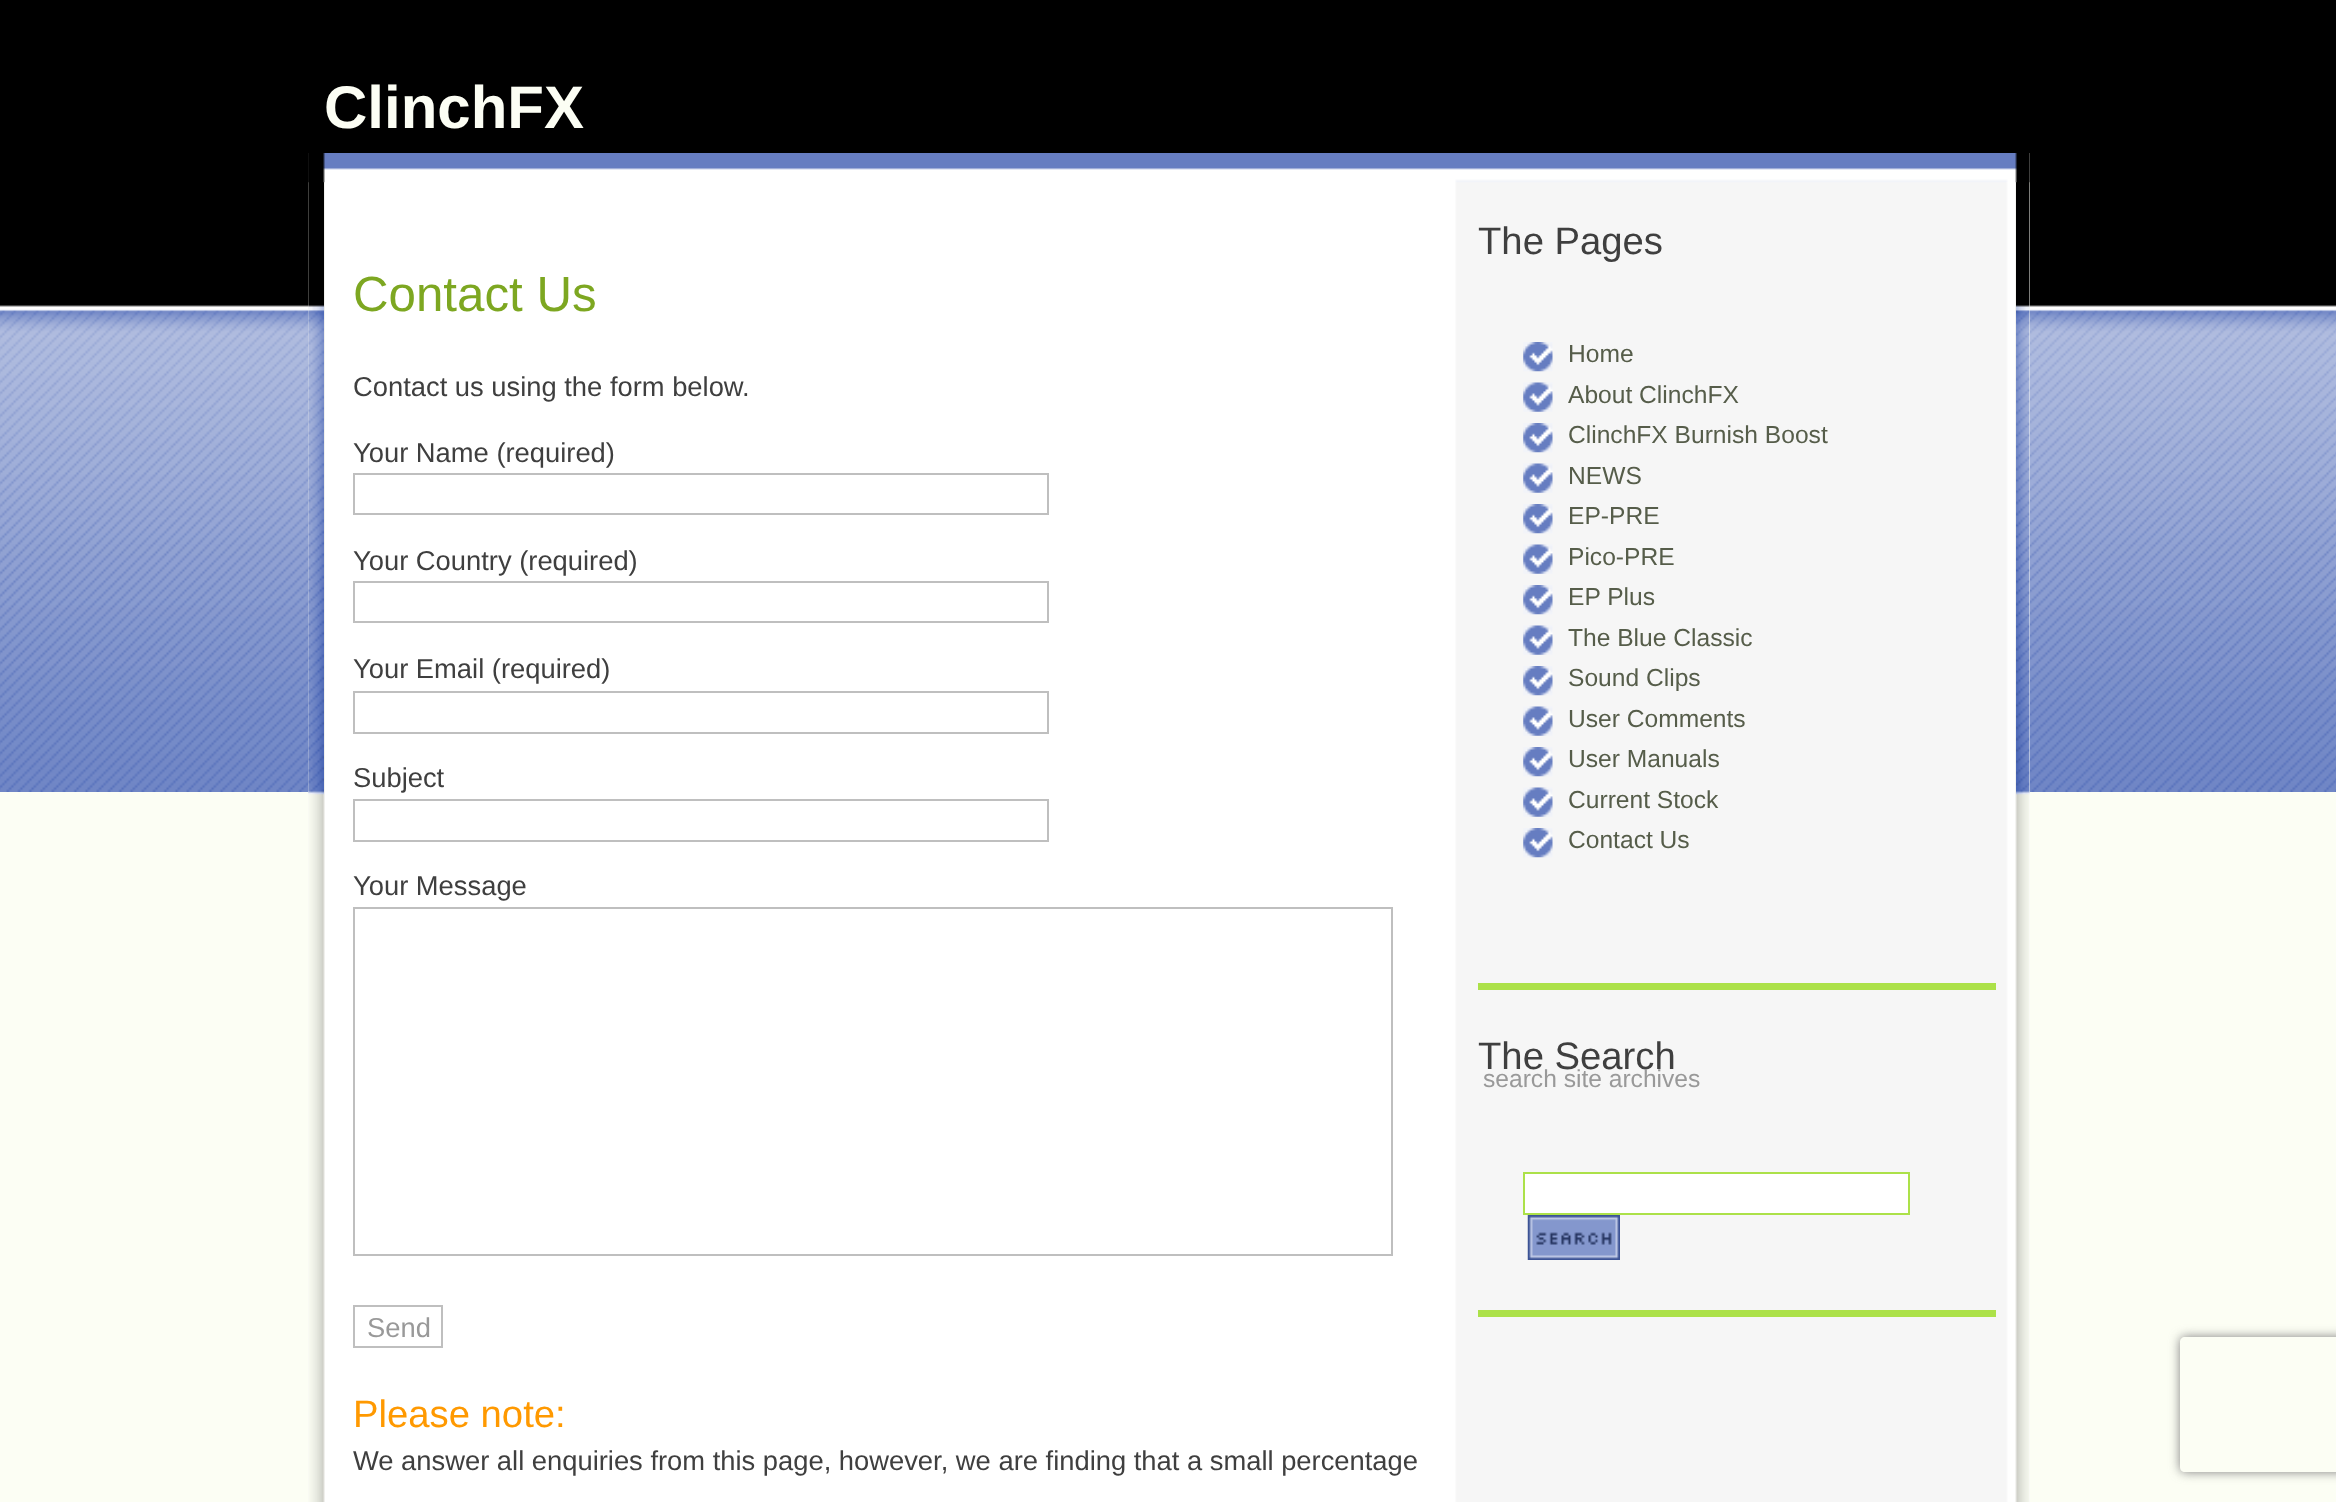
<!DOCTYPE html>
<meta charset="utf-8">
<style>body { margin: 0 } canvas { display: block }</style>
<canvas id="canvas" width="2336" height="1502"></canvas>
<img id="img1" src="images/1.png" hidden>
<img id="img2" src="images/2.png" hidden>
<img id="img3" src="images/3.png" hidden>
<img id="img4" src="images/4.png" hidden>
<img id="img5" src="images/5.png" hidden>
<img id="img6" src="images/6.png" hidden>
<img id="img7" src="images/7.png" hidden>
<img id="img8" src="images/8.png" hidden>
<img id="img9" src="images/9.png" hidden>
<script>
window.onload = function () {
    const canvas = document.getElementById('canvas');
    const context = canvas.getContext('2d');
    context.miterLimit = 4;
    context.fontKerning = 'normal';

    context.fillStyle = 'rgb(252, 254, 244)';
    context.fillRect(0, 0, 2336, 1502);
    context.drawImage(document.getElementById('img1'), 0, 0, 2336, 792);
    context.fillStyle = 'rgb(255, 255, 255)';
    context.fillRect(308, 153, 1722, 1349);
    context.drawImage(document.getElementById('img2'), 308, 153, 1722, 1349);
    context.drawImage(document.getElementById('img3'), 308, 153, 16, 642);
    context.drawImage(document.getElementById('img4'), 2016, 153, 14, 642);
    context.drawImage(document.getElementById('img5'), 308, 153, 1722, 30);
    context.strokeStyle = 'rgb(191, 191, 191)';
    context.lineWidth = 2;
    context.strokeRect(354, 474, 694, 40);
    context.strokeRect(354, 582, 694, 40);
    context.strokeRect(354, 692, 694, 41);
    context.strokeRect(354, 800, 694, 41);
    context.strokeRect(354, 908, 1038, 347);
    context.strokeRect(354, 1306, 88, 41);
    context.drawImage(document.getElementById('img6'), 1523, 342, 30, 30);
    context.drawImage(document.getElementById('img7'), 1523, 382, 30, 30);
    context.drawImage(document.getElementById('img6'), 1523, 423, 30, 30);
    context.drawImage(document.getElementById('img7'), 1523, 463, 30, 30);
    context.drawImage(document.getElementById('img6'), 1523, 504, 30, 30);
    context.drawImage(document.getElementById('img7'), 1523, 544, 30, 30);
    context.drawImage(document.getElementById('img6'), 1523, 585, 30, 30);
    context.drawImage(document.getElementById('img7'), 1523, 625, 30, 30);
    context.drawImage(document.getElementById('img6'), 1523, 666, 30, 30);
    context.drawImage(document.getElementById('img7'), 1523, 706, 30, 30);
    context.drawImage(document.getElementById('img6'), 1523, 747, 30, 30);
    context.drawImage(document.getElementById('img7'), 1523, 787, 30, 30);
    context.drawImage(document.getElementById('img8'), 1523, 828, 30, 30);
    context.fillStyle = 'rgb(172, 225, 73)';
    context.fillRect(1478, 983, 518, 7);
    context.fillStyle = 'rgb(255, 255, 255)';
    context.beginPath();
    context.rect(1524, 1173, 385, 41);
    context.fill();
    context.strokeStyle = 'rgb(172, 225, 73)';
    context.stroke();
    context.drawImage(document.getElementById('img9'), 1527, 1215, 93, 45);
    context.fillStyle = 'rgb(172, 225, 73)';
    context.fillRect(1478, 1310, 518, 7);
    context.save();
    context.beginPath();
    context.moveTo(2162, 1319);
    context.lineTo(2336, 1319);
    context.lineTo(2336, 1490);
    context.lineTo(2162, 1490);
    context.closePath();
    context.moveTo(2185, 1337);
    context.lineTo(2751, 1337);
    context.bezierCurveTo(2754, 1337, 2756, 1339, 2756, 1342);
    context.lineTo(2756, 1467);
    context.bezierCurveTo(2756, 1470, 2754, 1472, 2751, 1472);
    context.lineTo(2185, 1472);
    context.bezierCurveTo(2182, 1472, 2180, 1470, 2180, 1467);
    context.lineTo(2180, 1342);
    context.bezierCurveTo(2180, 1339, 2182, 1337, 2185, 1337);
    context.closePath();
    context.clip('evenodd');
    context.fillStyle = 'rgb(128, 128, 128)';
    context.filter = 'blur(5.5px)';
    context.beginPath();
    context.roundRect(2180, 1337, 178, 135, 5);
    context.fill();
    context.filter = 'none';
    context.restore();
    context.font = 'bold 60px Liberation Sans';
    context.fillStyle = 'rgb(252, 254, 244)';
    context.fillText('ClinchFX', 324, 128);
    context.font = '49.25px Liberation Sans';
    context.fillStyle = 'rgb(125, 167, 33)';
    context.fillText('Contact Us', 353, 311);
    context.font = '27.35px Liberation Sans';
    context.fillStyle = 'rgb(63, 63, 63)';
    context.fillText('Contact us using the form below.', 353, 396);
    context.fillText('Your Name (required)', 353, 462);
    context.fillText('Your Country (required)', 353, 570);
    context.fillText('Your Email (required)', 353, 678);
    context.fillText('Subject', 353, 787);
    context.fillText('Your Message', 353, 895);
    context.fillStyle = 'rgb(153, 153, 153)';
    context.fillText('Send', 367, 1337);
    context.font = '38.25px Liberation Sans';
    context.fillStyle = 'rgb(255, 153, 0)';
    context.fillText('Please note:', 353, 1427);
    context.font = '27.35px Liberation Sans';
    context.fillStyle = 'rgb(63, 63, 63)';
    context.fillText('We answer all enquiries from this page, however, we are finding that a small percentage', 353, 1470);
    context.font = '38.25px Liberation Sans';
    context.fillText('The Pages', 1478, 254);
    context.font = '24.6px Liberation Sans';
    context.fillStyle = 'rgb(86, 93, 74)';
    context.fillText('Home', 1568, 362);
    context.fillText('About ClinchFX', 1568, 403);
    context.fillText('ClinchFX Burnish Boost', 1568, 443);
    context.fillText('NEWS', 1568, 484);
    context.fillText('EP-PRE', 1568, 524);
    context.fillText('Pico-PRE', 1568, 565);
    context.fillText('EP Plus', 1568, 605);
    context.fillText('The Blue Classic', 1568, 646);
    context.fillText('Sound Clips', 1568, 686);
    context.fillText('User Comments', 1568, 727);
    context.fillText('User Manuals', 1568, 767);
    context.fillText('Current Stock', 1568, 808);
    context.fillText('Contact Us', 1568, 848);
    context.font = '38.25px Liberation Sans';
    context.fillStyle = 'rgb(63, 63, 63)';
    context.fillText('The Search', 1478, 1069);
    context.font = '24.6px Liberation Sans';
    context.fillStyle = 'rgb(153, 153, 153)';
    context.fillText('search site archives', 1483, 1087);
};
</script>
